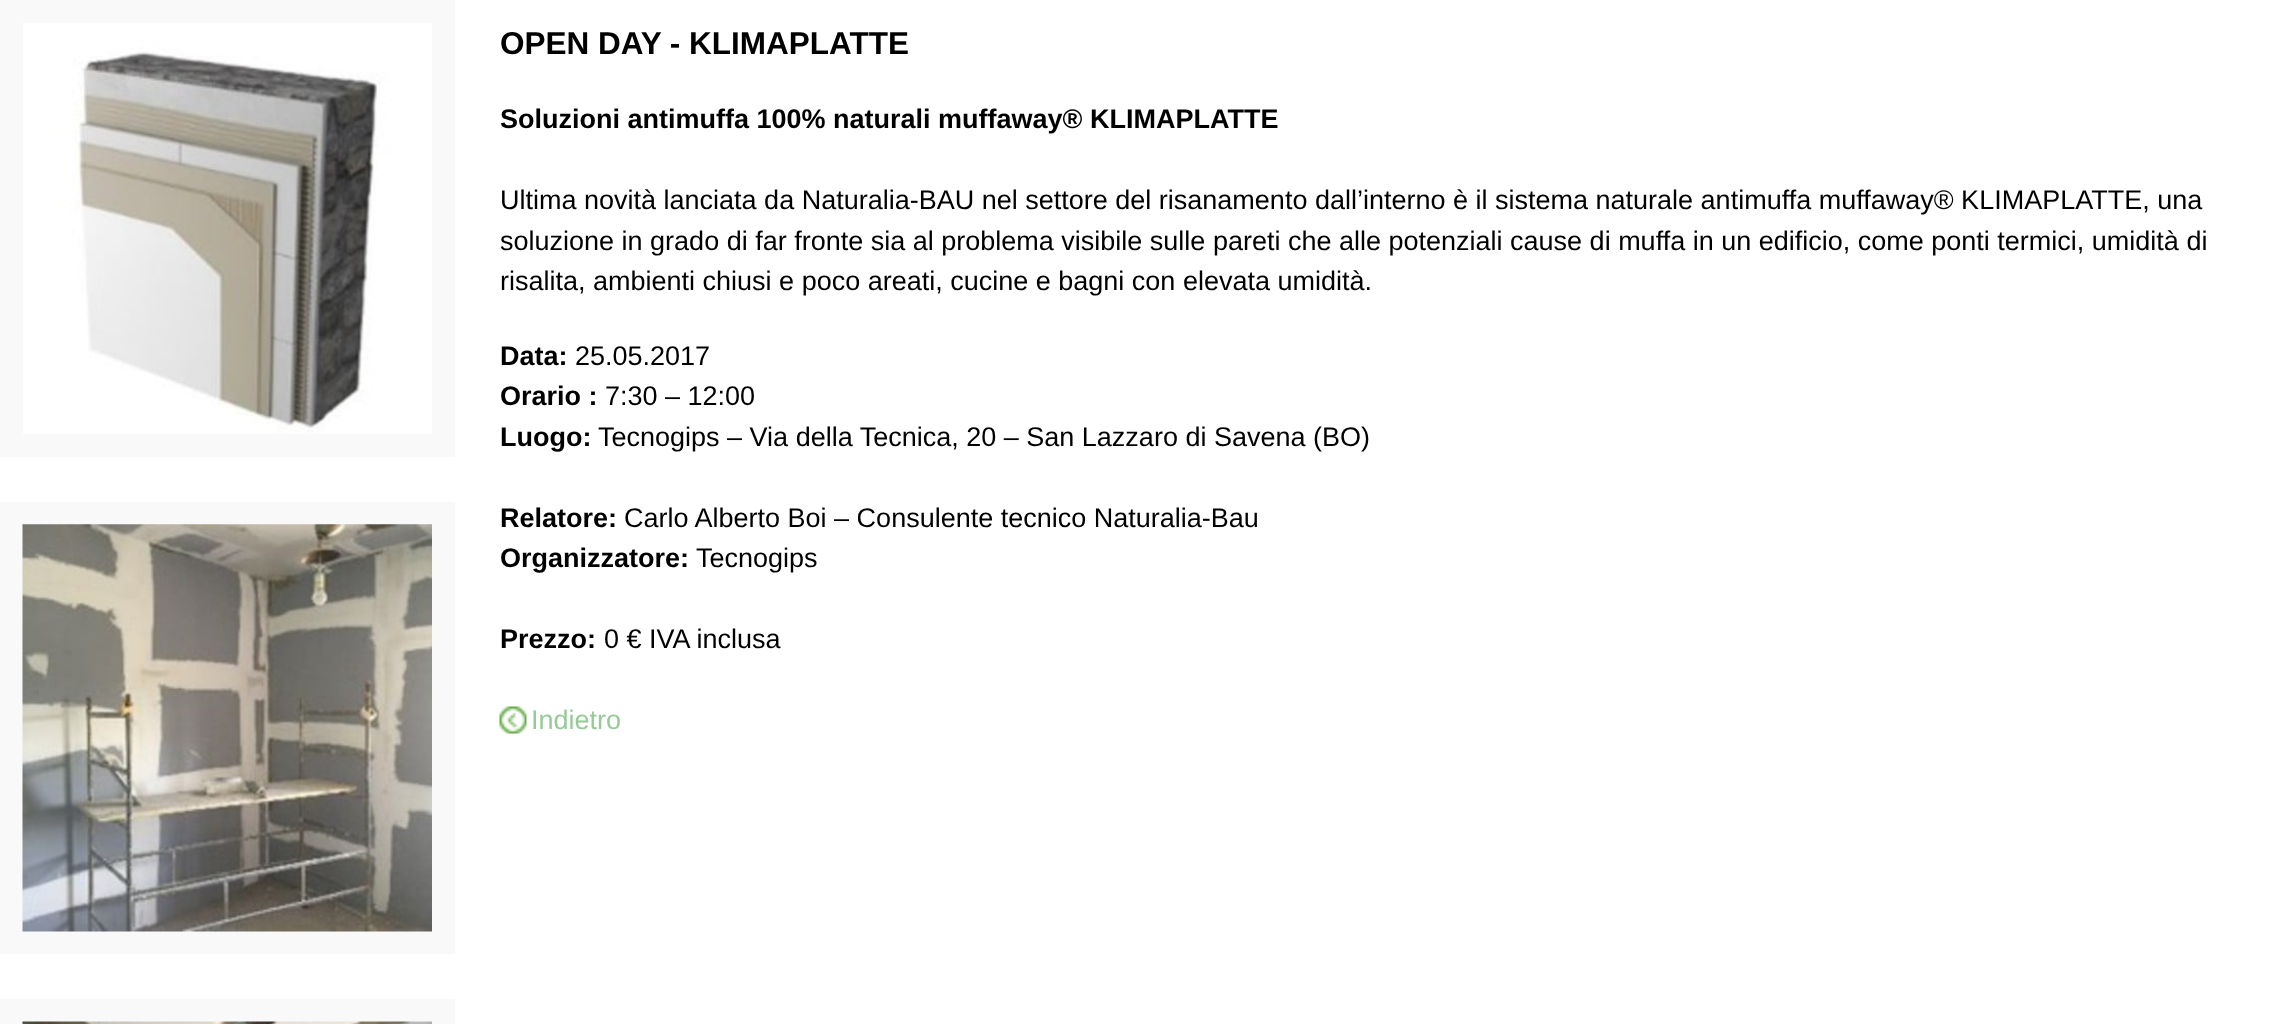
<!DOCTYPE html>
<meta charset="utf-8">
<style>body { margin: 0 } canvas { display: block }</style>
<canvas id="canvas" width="2272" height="1024"></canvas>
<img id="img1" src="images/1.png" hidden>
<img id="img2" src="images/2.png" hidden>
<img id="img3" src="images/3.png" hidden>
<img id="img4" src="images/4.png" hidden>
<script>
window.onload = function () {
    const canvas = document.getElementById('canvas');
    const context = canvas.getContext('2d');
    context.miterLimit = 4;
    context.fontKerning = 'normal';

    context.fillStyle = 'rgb(255, 255, 255)';
    context.fillRect(0, 0, 2272, 1024);
    context.fillStyle = 'rgb(249, 249, 249)';
    context.fillRect(0, 0, 455, 457);
    context.drawImage(document.getElementById('img1'), 23, 23, 409, 411);
    context.fillRect(0, 502, 455, 452);
    context.drawImage(document.getElementById('img2'), 22, 524, 410, 408);
    context.fillRect(0, 999, 455, 25);
    context.drawImage(document.getElementById('img3'), 22, 1021, 410, 3);
    context.drawImage(document.getElementById('img4'), 499, 706, 28, 28);
    context.font = 'bold 31.5px Liberation Sans';
    context.fillStyle = 'rgb(0, 0, 0)';
    context.fillText('OPEN DAY - KLIMAPLATTE', 500, 54);
    context.font = 'bold 27px Liberation Sans';
    context.fillText('Soluzioni antimuffa 100% naturali muffaway® KLIMAPLATTE', 500, 128);
    context.font = '27px Liberation Sans';
    context.fillText('Ultima novità lanciata da Naturalia-BAU nel settore del risanamento dall’interno è il sistema naturale antimuffa muffaway® KLIMAPLATTE, una', 500, 209);
    context.fillText('soluzione in grado di far fronte sia al problema visibile sulle pareti che alle potenziali cause di muffa in un edificio, come ponti termici, umidità di', 500, 250);
    context.fillText('risalita, ambienti chiusi e poco areati, cucine e bagni con elevata umidità.', 500, 290);
    context.font = 'bold 27px Liberation Sans';
    context.fillText('Data:', 500, 365);
    context.font = '27px Liberation Sans';
    context.fillText('25.05.2017', 575, 365);
    context.font = 'bold 27px Liberation Sans';
    context.fillText('Orario :', 500, 405);
    context.font = '27px Liberation Sans';
    context.fillText('7:30 – 12:00', 605, 405);
    context.font = 'bold 27px Liberation Sans';
    context.fillText('Luogo:', 500, 446);
    context.font = '27px Liberation Sans';
    context.fillText('Tecnogips – Via della Tecnica, 20 – San Lazzaro di Savena (BO)', 598, 446);
    context.font = 'bold 27px Liberation Sans';
    context.fillText('Relatore:', 500, 527);
    context.font = '27px Liberation Sans';
    context.fillText('Carlo Alberto Boi – Consulente tecnico Naturalia-Bau', 624, 527);
    context.font = 'bold 27px Liberation Sans';
    context.fillText('Organizzatore:', 500, 567);
    context.font = '27px Liberation Sans';
    context.fillText('Tecnogips', 696, 567);
    context.font = 'bold 27px Liberation Sans';
    context.fillText('Prezzo:', 500, 648);
    context.font = '27px Liberation Sans';
    context.fillText('0 € IVA inclusa', 604, 648);
    context.fillStyle = 'rgb(150, 203, 152)';
    context.fillText('Indietro', 531, 729);
};
</script>
